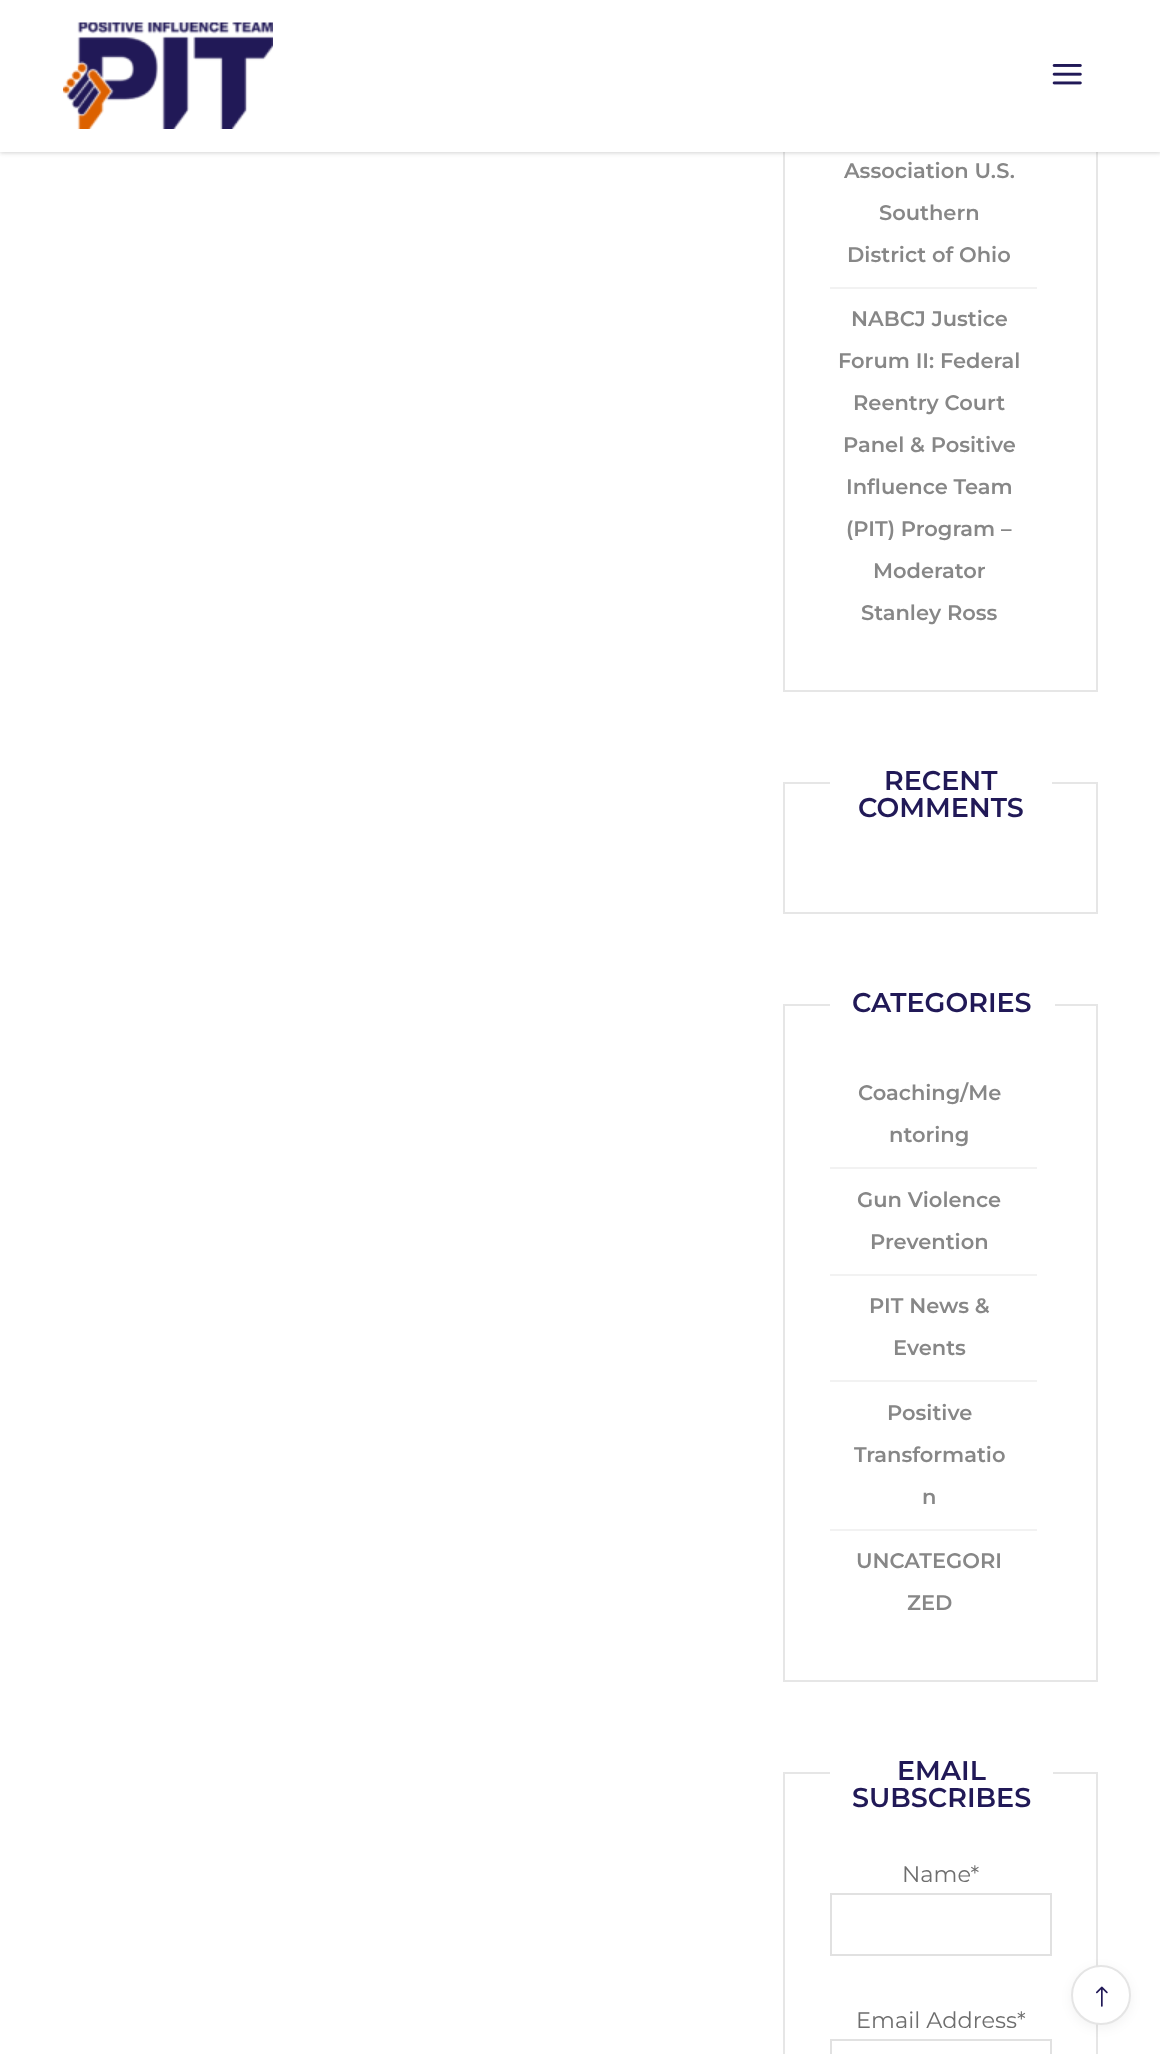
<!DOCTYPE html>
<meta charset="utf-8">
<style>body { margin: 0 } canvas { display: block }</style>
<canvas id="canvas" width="1160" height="2054"></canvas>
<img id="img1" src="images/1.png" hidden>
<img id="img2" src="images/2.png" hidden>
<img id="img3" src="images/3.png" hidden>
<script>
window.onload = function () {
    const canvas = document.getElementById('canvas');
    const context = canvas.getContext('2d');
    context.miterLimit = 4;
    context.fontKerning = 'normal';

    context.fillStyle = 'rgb(255, 255, 255)';
    context.fillRect(0, 0, 1160, 2054);
    context.strokeStyle = 'rgb(230, 230, 230)';
    context.lineWidth = 2;
    context.strokeRect(784, -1, 313, 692);
    context.fillStyle = 'rgba(33, 33, 33, 0.2)';
    context.filter = 'blur(2px)';
    context.beginPath();
    context.rect(0, 2, 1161, 151);
    context.fill();
    context.filter = 'none';
    context.fillStyle = 'rgb(255, 255, 255)';
    context.fillRect(0, 0, 1160, 152);
    context.drawImage(document.getElementById('img1'), 63, 22, 210, 107);
    context.drawImage(document.getElementById('img2'), 1052, 64, 30, 21);
    context.fillStyle = 'rgb(242, 242, 242)';
    context.fillRect(830, 287, 207, 2);
    context.strokeRect(784, 783, 313, 130);
    context.fillStyle = 'rgb(255, 255, 255)';
    context.fillRect(830, 782, 222, 2);
    context.strokeRect(784, 1005, 313, 676);
    context.fillRect(830, 1004, 225, 2);
    context.fillStyle = 'rgb(242, 242, 242)';
    context.fillRect(830, 1167, 207, 2);
    context.fillRect(830, 1274, 207, 2);
    context.fillRect(830, 1380, 207, 2);
    context.fillRect(830, 1529, 207, 2);
    context.strokeRect(784, 1773, 313, 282);
    context.fillStyle = 'rgb(255, 255, 255)';
    context.fillRect(830, 1772, 223, 2);
    context.strokeStyle = 'rgb(225, 225, 225)';
    context.strokeRect(831, 1894, 220, 61);
    context.strokeRect(831, 2040, 220, 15);
    context.fillStyle = 'rgba(0, 0, 0, 0.05)';
    context.filter = 'blur(6px)';
    context.beginPath();
    context.roundRect(1071, 1968, 60, 60, 30);
    context.fill();
    context.filter = 'none';
    context.fillStyle = 'rgb(255, 255, 255)';
    context.beginPath();
    context.arc(1101, 1995, 29, 0, 2 * Math.PI);
    context.fill();
    context.strokeStyle = 'rgb(229, 229, 229)';
    context.stroke();
    context.drawImage(document.getElementById('img3'), 1096, 1986, 12, 21);
    context.font = '600 21px Montserrat';
    context.fillStyle = 'rgb(135, 135, 135)';
    context.fillText('Association U.S.', 844, 178);
    context.fillText('Southern', 879, 220);
    context.fillText('District of Ohio', 847, 262);
    context.fillText('NABCJ Justice', 851, 326);
    context.fillText('Forum II: Federal', 838, 368);
    context.fillText('Reentry Court', 853, 410);
    context.fillText('Panel & Positive', 843, 452);
    context.fillText('Influence Team', 846, 494);
    context.fillText('(PIT) Program –', 846, 536);
    context.fillText('Moderator', 873, 578);
    context.fillText('Stanley Ross', 861, 620);
    context.font = '600 27px Montserrat';
    context.fillStyle = 'rgb(33, 25, 87)';
    context.fillText('RECENT', 884, 790);
    context.fillText('COMMENTS', 858, 817);
    context.fillText('CATEGORIES', 852, 1012);
    context.font = '600 21px Montserrat';
    context.fillStyle = 'rgb(135, 135, 135)';
    context.fillText('Coaching/Me', 858, 1100);
    context.fillText('ntoring', 889, 1142);
    context.fillText('Gun Violence', 857, 1207);
    context.fillText('Prevention', 870, 1249);
    context.fillText('PIT News &', 869, 1313);
    context.fillText('Events', 893, 1355);
    context.fillText('Positive', 887, 1420);
    context.fillText('Transformatio', 854, 1462);
    context.fillText('n', 922, 1504);
    context.fillText('UNCATEGORI', 856, 1568);
    context.fillText('ZED', 907, 1610);
    context.font = '600 27px Montserrat';
    context.fillStyle = 'rgb(33, 25, 87)';
    context.fillText('EMAIL', 897, 1780);
    context.fillText('SUBSCRIBES', 852, 1807);
    context.font = '22.5px Montserrat';
    context.fillStyle = 'rgb(110, 110, 110)';
    context.fillText('Name*', 902, 1882);
    context.fillText('Email Address*', 856, 2028);
};
</script>
